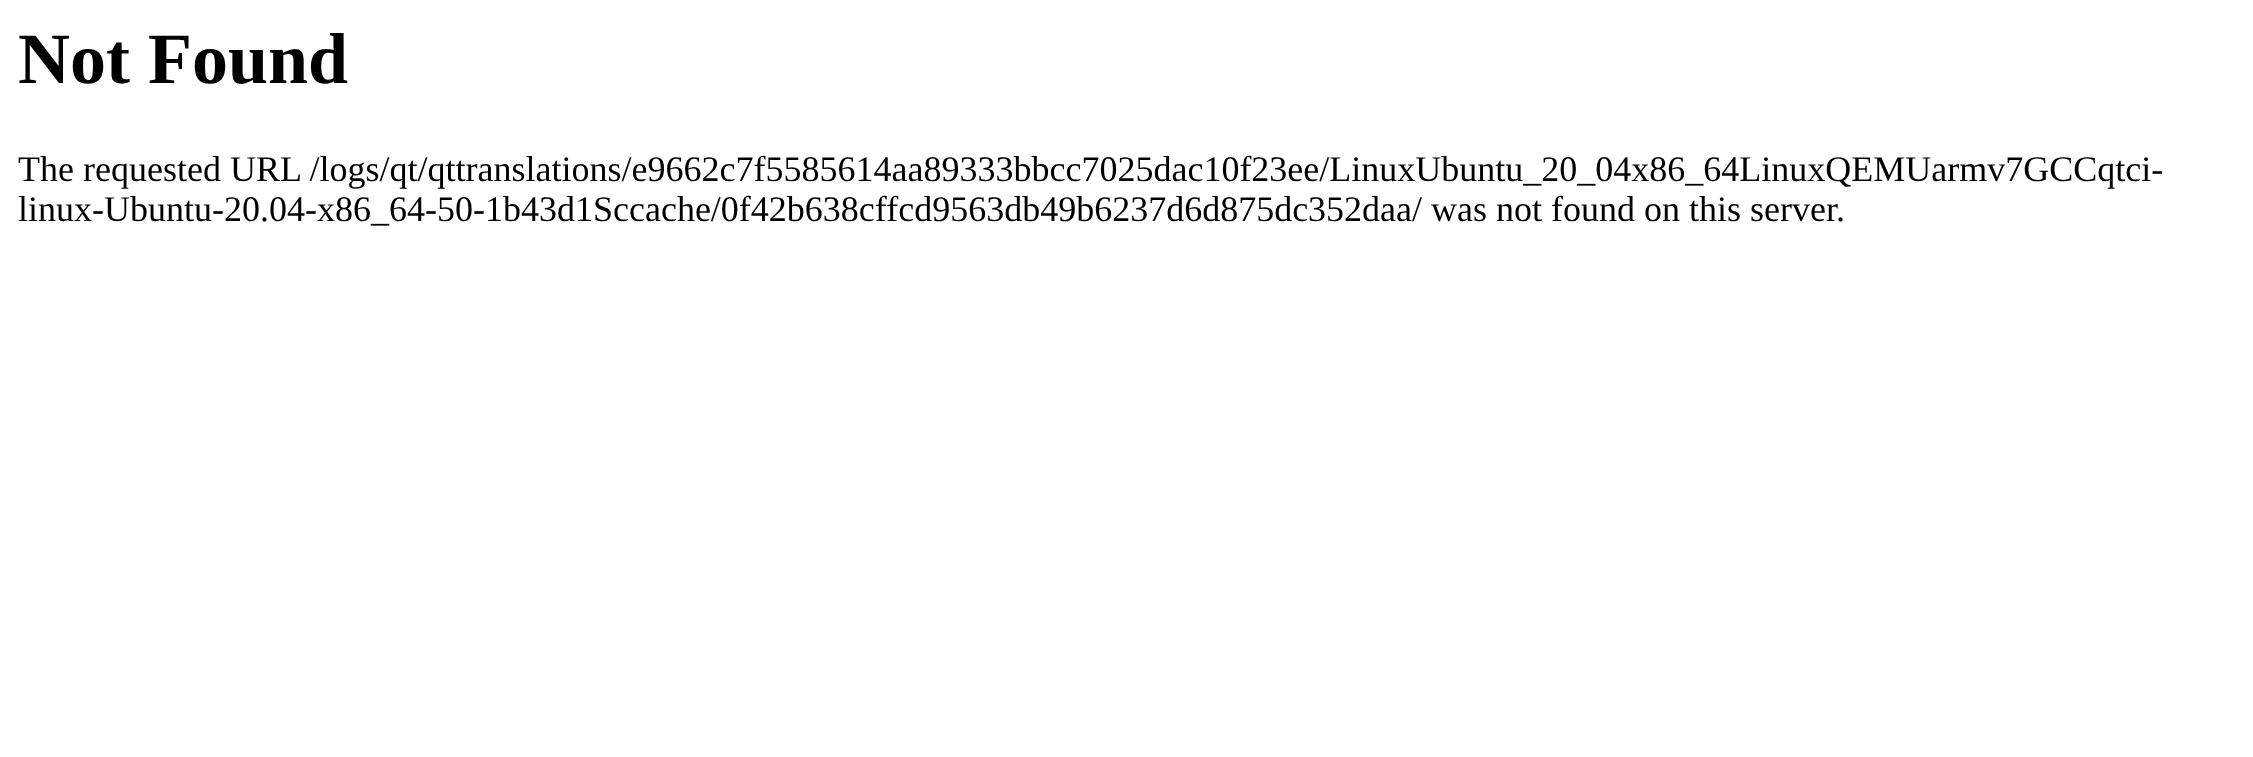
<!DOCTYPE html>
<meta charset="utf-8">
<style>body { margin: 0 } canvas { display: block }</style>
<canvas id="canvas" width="2253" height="757"></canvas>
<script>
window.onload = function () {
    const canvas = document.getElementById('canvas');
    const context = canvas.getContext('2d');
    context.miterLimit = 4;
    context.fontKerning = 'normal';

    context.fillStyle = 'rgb(255, 255, 255)';
    context.fillRect(0, 0, 2253, 757);
    context.font = 'bold 72px Liberation Serif';
    context.fillStyle = 'rgb(0, 0, 0)';
    context.fillText('Not Found', 18, 83);
    context.font = '36px Liberation Serif';
    context.fillText('The requested URL /logs/qt/qttranslations/e9662c7f5585614aa89333bbcc7025dac10f23ee/LinuxUbuntu_20_04x86_64LinuxQEMUarmv7GCCqtci-', 18, 181);
    context.fillText('linux-Ubuntu-20.04-x86_64-50-1b43d1Sccache/0f42b638cffcd9563db49b6237d6d875dc352daa/ was not found on this server.', 18, 221);
};
</script>
